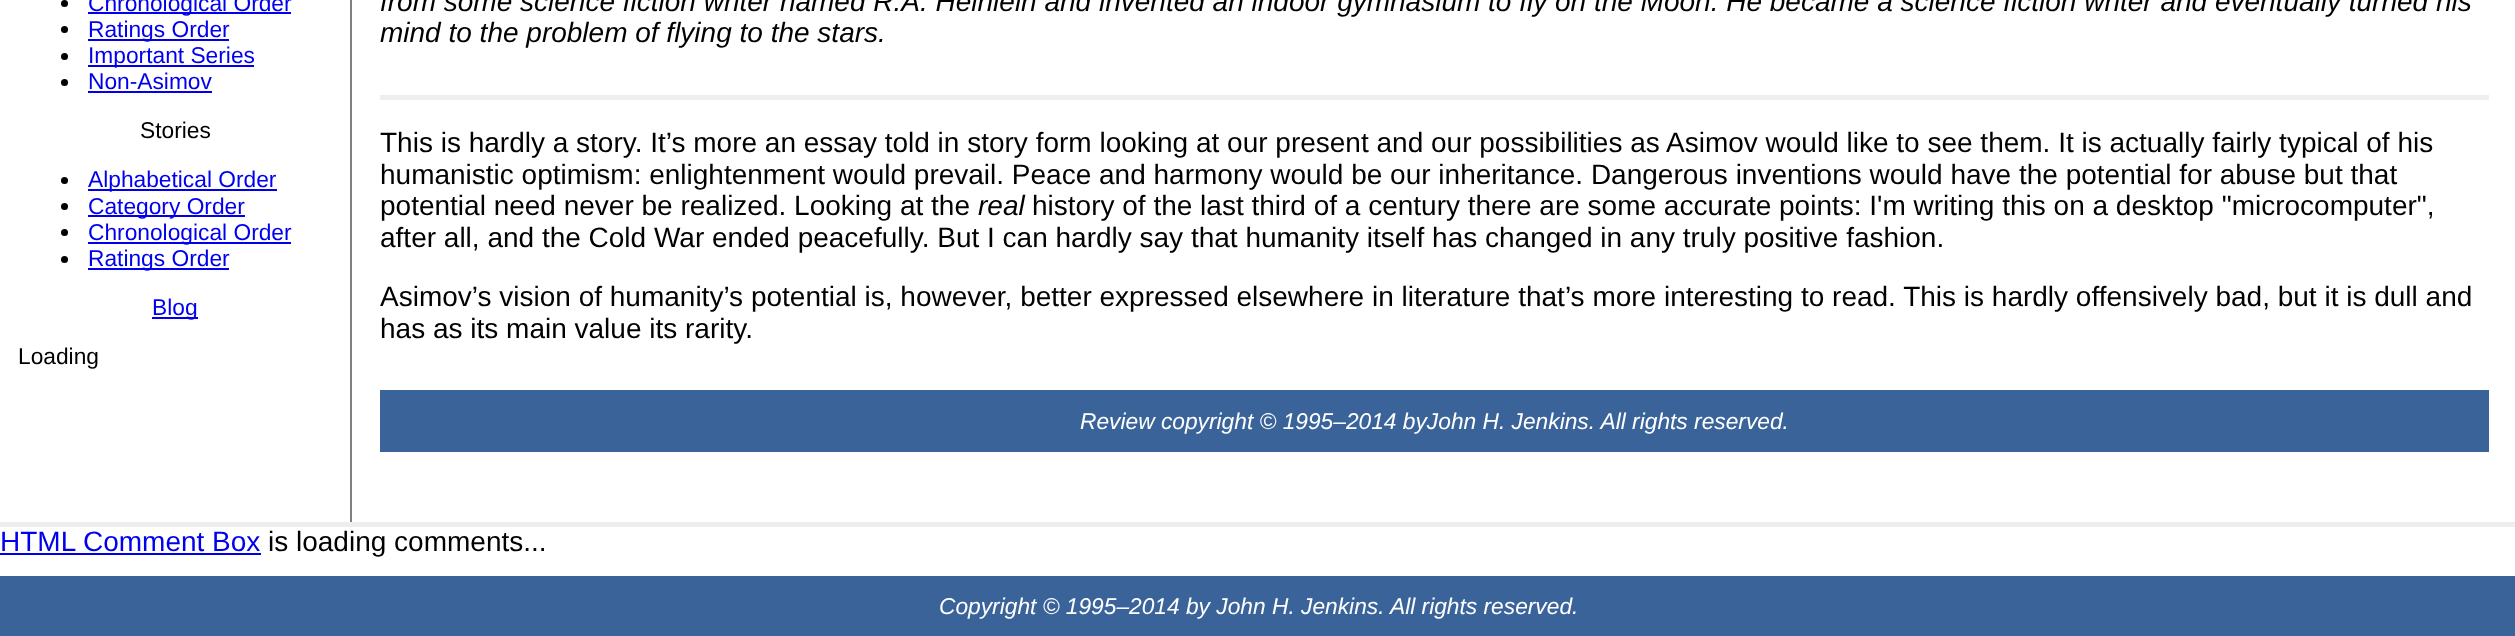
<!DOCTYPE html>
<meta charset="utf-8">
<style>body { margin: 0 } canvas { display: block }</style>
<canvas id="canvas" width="2515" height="636"></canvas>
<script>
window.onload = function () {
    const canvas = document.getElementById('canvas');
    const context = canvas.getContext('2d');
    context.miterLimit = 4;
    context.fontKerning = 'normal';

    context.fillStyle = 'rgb(255, 255, 255)';
    context.fillRect(0, 0, 2515, 636);
    context.fillStyle = 'rgb(0, 0, 0)';
    context.beginPath();
    context.arc(64.5, 3.5, 3.5, 0, 2 * Math.PI);
    context.fill();
    context.fillStyle = 'rgb(0, 0, 238)';
    context.fillRect(88, 12, 203, 2);
    context.fillStyle = 'rgb(0, 0, 0)';
    context.beginPath();
    context.arc(64.5, 29.5, 3.5, 0, 2 * Math.PI);
    context.fill();
    context.fillStyle = 'rgb(0, 0, 238)';
    context.fillRect(88, 39, 141, 2);
    context.fillStyle = 'rgb(0, 0, 0)';
    context.beginPath();
    context.arc(64.5, 56.5, 3.5, 0, 2 * Math.PI);
    context.fill();
    context.fillStyle = 'rgb(0, 0, 238)';
    context.fillRect(88, 65, 166, 2);
    context.fillStyle = 'rgb(0, 0, 0)';
    context.beginPath();
    context.arc(64.5, 82.5, 3.5, 0, 2 * Math.PI);
    context.fill();
    context.fillStyle = 'rgb(0, 0, 238)';
    context.fillRect(88, 91, 124, 2);
    context.fillStyle = 'rgb(0, 0, 0)';
    context.beginPath();
    context.arc(64.5, 180.5, 3.5, 0, 2 * Math.PI);
    context.fill();
    context.fillStyle = 'rgb(0, 0, 238)';
    context.fillRect(88, 189, 189, 2);
    context.fillStyle = 'rgb(0, 0, 0)';
    context.beginPath();
    context.arc(64.5, 206.5, 3.5, 0, 2 * Math.PI);
    context.fill();
    context.fillStyle = 'rgb(0, 0, 238)';
    context.fillRect(88, 215, 157, 2);
    context.fillStyle = 'rgb(0, 0, 0)';
    context.beginPath();
    context.arc(64.5, 232.5, 3.5, 0, 2 * Math.PI);
    context.fill();
    context.fillStyle = 'rgb(0, 0, 238)';
    context.fillRect(88, 242, 203, 2);
    context.fillStyle = 'rgb(0, 0, 0)';
    context.beginPath();
    context.arc(64.5, 259.5, 3.5, 0, 2 * Math.PI);
    context.fill();
    context.fillStyle = 'rgb(0, 0, 238)';
    context.fillRect(88, 268, 141, 2);
    context.fillRect(152, 317, 46, 2);
    context.fillStyle = 'rgb(128, 128, 128)';
    context.fillRect(350, 0, 2, 522);
    context.fillStyle = 'rgb(238, 238, 238)';
    context.fillRect(380, 95, 2109, 5);
    context.fillStyle = 'rgb(58, 100, 153)';
    context.fillRect(380, 390, 2109, 62);
    context.fillStyle = 'rgb(238, 238, 238)';
    context.fillRect(0, 522, 2515, 5);
    context.fillStyle = 'rgb(0, 0, 238)';
    context.fillRect(0, 553, 261, 2);
    context.fillStyle = 'rgb(58, 100, 153)';
    context.fillRect(0, 576, 2515, 60);
    context.font = '22.75px Liberation Sans';
    context.fillStyle = 'rgb(0, 0, 238)';
    context.fillText('Chronological Order', 88, 11);
    context.fillText('Ratings Order', 88, 37);
    context.fillText('Important Series', 88, 63);
    context.fillText('Non-Asimov', 88, 89);
    context.fillStyle = 'rgb(0, 0, 0)';
    context.fillText('Stories', 140, 138);
    context.fillStyle = 'rgb(0, 0, 238)';
    context.fillText('Alphabetical Order', 88, 187);
    context.fillText('Category Order', 88, 214);
    context.fillText('Chronological Order', 88, 240);
    context.fillText('Ratings Order', 88, 266);
    context.fillText('Blog', 152, 315);
    context.fillStyle = 'rgb(0, 0, 0)';
    context.fillText('Loading', 18, 364);
    context.font = 'italic 28px Liberation Sans';
    context.fillText('from some science fiction writer named R.A. Heinlein and invented an indoor gymnasium to fly on the Moon. He became a science fiction writer and eventually turned his', 380, 11);
    context.fillText('mind to the problem of flying to the stars.', 380, 42);
    context.font = '28px Liberation Sans';
    context.fillText('This is hardly a story. It’s more an essay told in story form looking at our present and our possibilities as Asimov would like to see them. It is actually fairly typical of his', 380, 152);
    context.fillText('humanistic optimism: enlightenment would prevail. Peace and harmony would be our inheritance. Dangerous inventions would have the potential for abuse but that', 380, 184);
    context.fillText('potential need never be realized. Looking at the', 380, 215);
    context.font = 'italic 28px Liberation Sans';
    context.fillText('real', 978, 215);
    context.font = '28px Liberation Sans';
    context.fillText('history of the last third of a century there are some accurate points: I\'m writing this on a desktop "microcomputer",', 1032, 215);
    context.fillText('after all, and the Cold War ended peacefully. But I can hardly say that humanity itself has changed in any truly positive fashion.', 380, 247);
    context.fillText('Asimov’s vision of humanity’s potential is, however, better expressed elsewhere in literature that’s more interesting to read. This is hardly offensively bad, but it is dull and', 380, 306);
    context.fillText('has as its main value its rarity.', 380, 338);
    context.font = 'italic 22.75px Liberation Sans';
    context.fillStyle = 'rgb(255, 255, 255)';
    context.fillText('Review copyright © 1995–2014 byJohn H. Jenkins. All rights reserved.', 1080, 429);
    context.font = '28px Liberation Sans';
    context.fillStyle = 'rgb(0, 0, 238)';
    context.fillText('HTML Comment Box', 0, 551);
    context.fillStyle = 'rgb(0, 0, 0)';
    context.fillText('is loading comments...', 268, 551);
    context.font = 'italic 22.75px Liberation Sans';
    context.fillStyle = 'rgb(255, 255, 255)';
    context.fillText('Copyright © 1995–2014 by John H. Jenkins. All rights reserved.', 939, 614);
};
</script>
